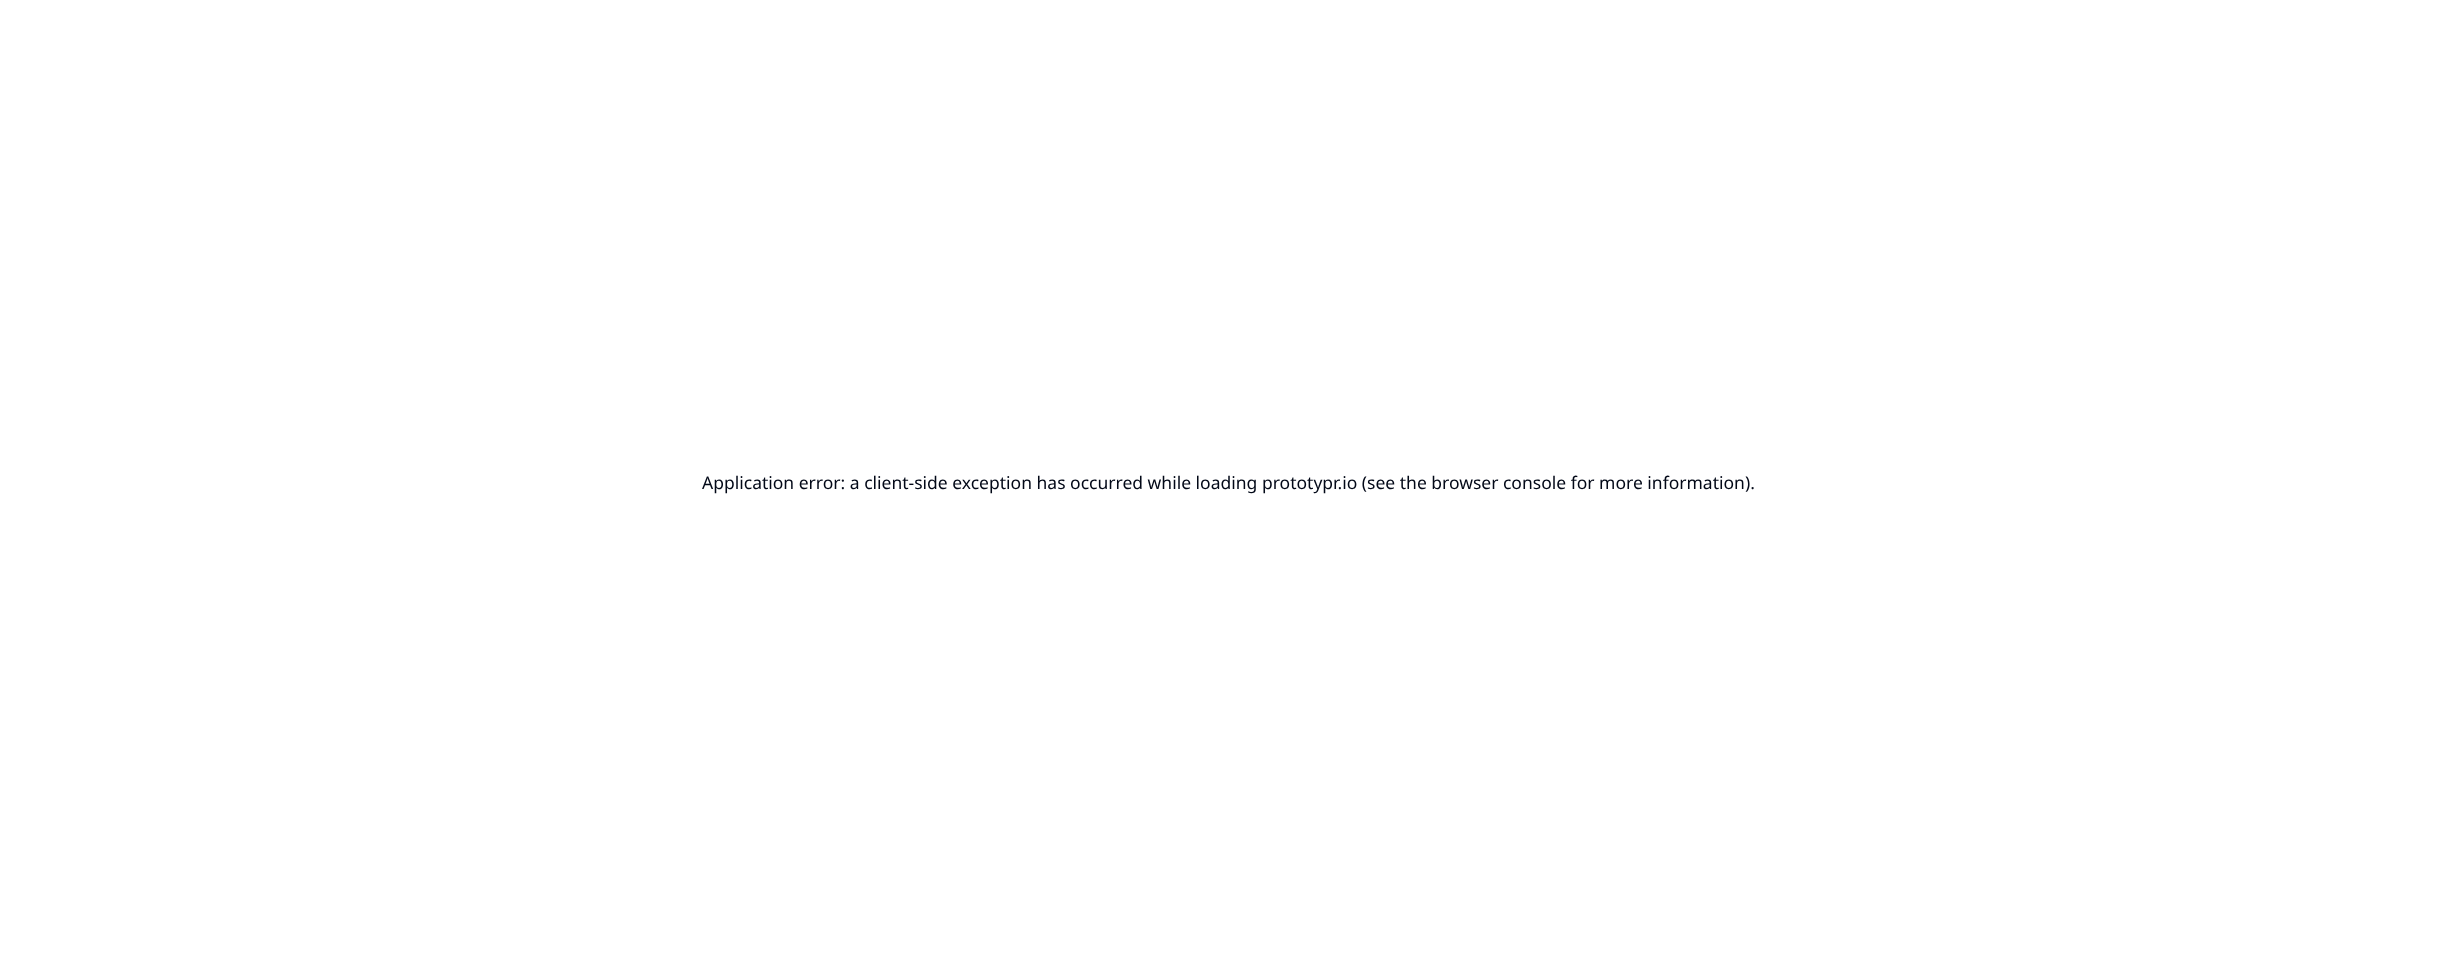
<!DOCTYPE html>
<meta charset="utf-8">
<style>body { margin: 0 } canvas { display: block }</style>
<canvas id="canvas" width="2456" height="965"></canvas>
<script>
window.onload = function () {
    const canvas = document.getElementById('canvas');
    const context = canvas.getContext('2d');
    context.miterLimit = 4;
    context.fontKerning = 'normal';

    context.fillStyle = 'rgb(255, 255, 255)';
    context.fillRect(0, 0, 2456, 965);
    context.font = '17.5px Noto Sans';
    context.fillStyle = 'rgb(2, 8, 23)';
    context.fillText('Application error: a client-side exception has occurred while loading prototypr.io (see the browser console for more information).', 702, 489);
};
</script>
